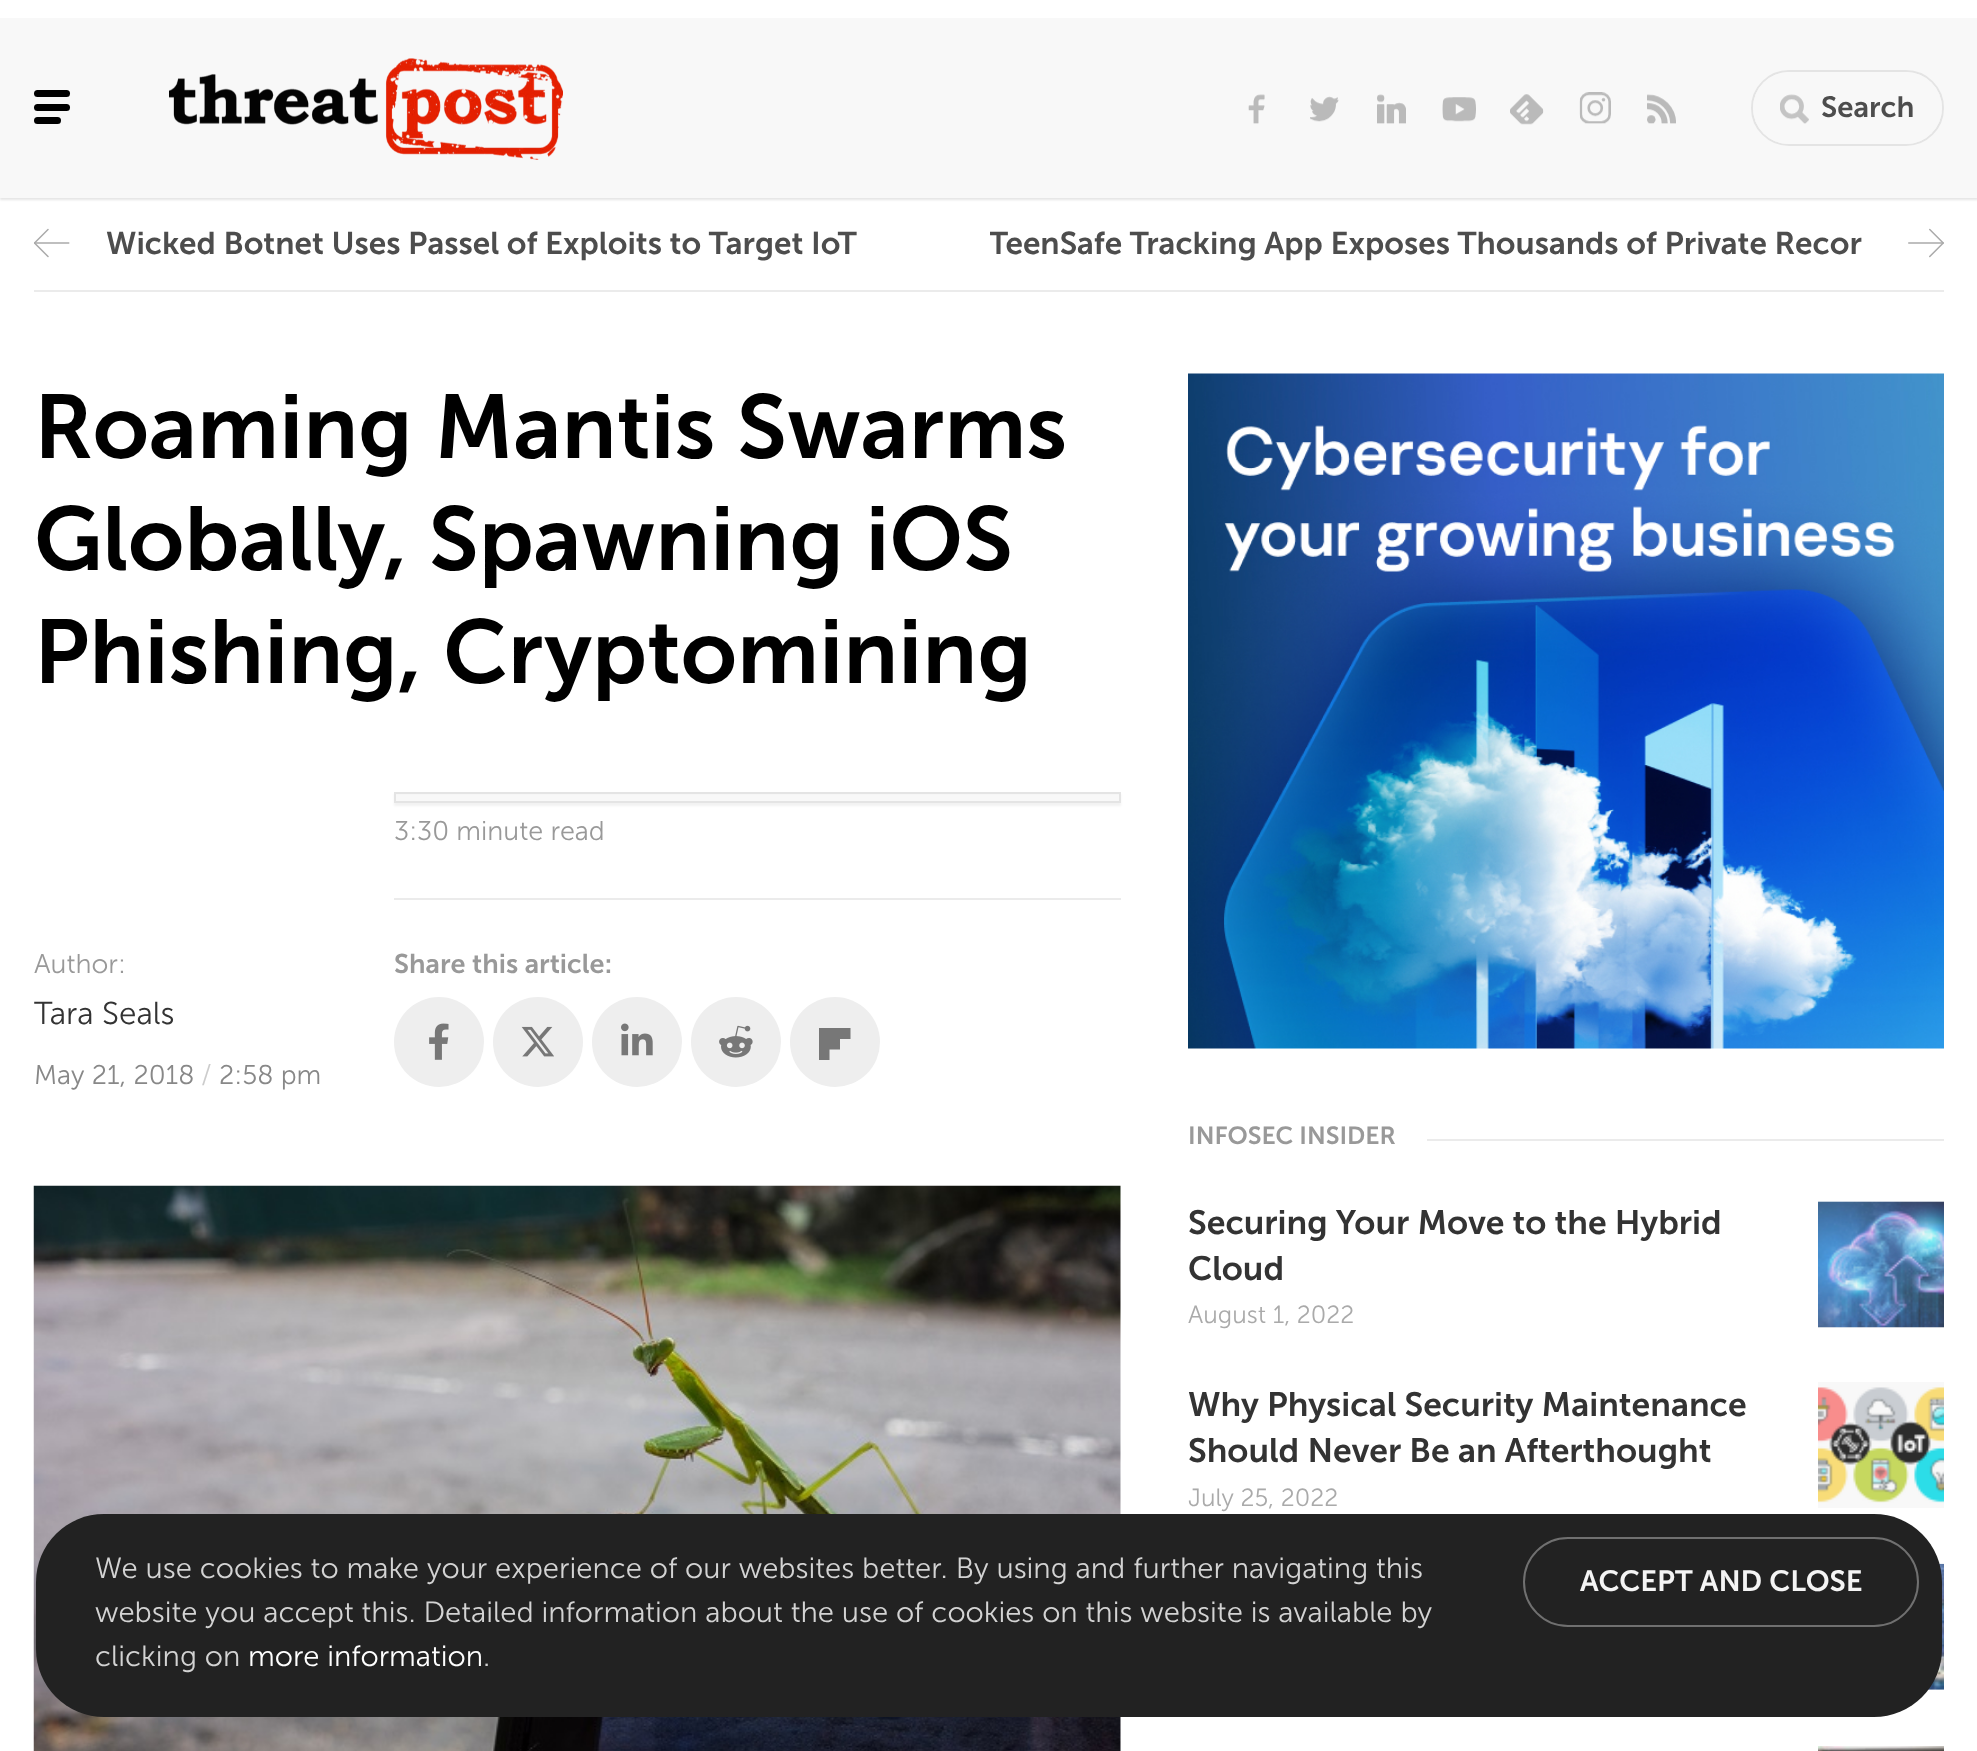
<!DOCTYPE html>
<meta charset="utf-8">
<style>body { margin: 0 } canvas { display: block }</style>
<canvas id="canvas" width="1977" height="1751"></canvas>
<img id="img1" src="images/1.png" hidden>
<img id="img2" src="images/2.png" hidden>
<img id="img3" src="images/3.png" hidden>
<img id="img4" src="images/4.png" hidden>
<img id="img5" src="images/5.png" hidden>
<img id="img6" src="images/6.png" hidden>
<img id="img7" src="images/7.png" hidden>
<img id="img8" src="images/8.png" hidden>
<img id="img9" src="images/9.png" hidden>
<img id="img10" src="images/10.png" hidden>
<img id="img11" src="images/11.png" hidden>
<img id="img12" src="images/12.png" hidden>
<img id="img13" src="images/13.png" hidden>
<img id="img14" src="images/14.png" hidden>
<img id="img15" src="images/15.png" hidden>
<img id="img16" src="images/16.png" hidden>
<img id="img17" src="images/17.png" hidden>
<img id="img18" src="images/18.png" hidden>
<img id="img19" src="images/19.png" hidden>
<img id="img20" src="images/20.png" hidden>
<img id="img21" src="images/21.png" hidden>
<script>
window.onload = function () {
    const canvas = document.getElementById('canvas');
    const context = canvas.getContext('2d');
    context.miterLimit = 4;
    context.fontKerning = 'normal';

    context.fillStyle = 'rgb(255, 255, 255)';
    context.fillRect(0, 0, 1977, 1751);
    context.fillStyle = 'rgb(248, 248, 248)';
    context.fillRect(1928, 1689, 16, 1);
    context.fillRect(1818, 1382, 126, 126);
    context.fillRect(1818, 1327, 126, 1);
    context.fillStyle = 'rgba(0, 0, 0, 0.1)';
    context.filter = 'blur(1px)';
    context.beginPath();
    context.rect(0, 20, 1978, 180);
    context.fill();
    context.filter = 'none';
    context.fillStyle = 'rgb(248, 248, 248)';
    context.fillRect(0, 18, 1977, 180);
    context.fillStyle = 'rgb(0, 0, 0)';
    context.beginPath();
    context.roundRect(34, 90, 36, 7, 3.5);
    context.fill();
    context.beginPath();
    context.roundRect(34, 104, 36, 7, 3.5);
    context.fill();
    context.beginPath();
    context.roundRect(34, 117, 27, 7, 3.5);
    context.fill();
    context.drawImage(document.getElementById('img1'), 169, 58, 394, 102);
    context.drawImage(document.getElementById('img2'), 1248, 94, 17, 30);
    context.drawImage(document.getElementById('img3'), 1310, 96, 29, 26);
    context.drawImage(document.getElementById('img4'), 1377, 94, 29, 30);
    context.drawImage(document.getElementById('img5'), 1442, 97, 34, 25);
    context.drawImage(document.getElementById('img6'), 1510, 94, 34, 31);
    context.drawImage(document.getElementById('img7'), 1579, 92, 32, 32);
    context.drawImage(document.getElementById('img8'), 1647, 94, 29, 30);
    context.beginPath();
    context.roundRect(1752, 71, 191, 74, 37);
    context.strokeStyle = 'rgb(228, 228, 228)';
    context.lineWidth = 2;
    context.stroke();
    context.fillStyle = 'rgb(248, 248, 248)';
    context.beginPath();
    context.roundRect(1753, 72, 189, 72, 36);
    context.fill();
    context.drawImage(document.getElementById('img9'), 1780, 94, 29, 30);
    context.drawImage(document.getElementById('img10'), 34, 228, 36, 30);
    context.drawImage(document.getElementById('img11'), 1908, 228, 36, 30);
    context.fillStyle = 'rgb(235, 235, 235)';
    context.fillRect(34, 290, 1910, 2);
    context.fillStyle = 'rgba(0, 0, 0, 0.05)';
    context.filter = 'blur(1px)';
    context.beginPath();
    context.rect(394, 794, 727, 12);
    context.fill();
    context.filter = 'none';
    context.fillStyle = 'rgb(248, 248, 248)';
    context.fillRect(396, 795, 723, 6);
    context.strokeRect(395, 793, 725, 9);
    context.fillStyle = 'rgb(235, 235, 235)';
    context.fillRect(394, 898, 727, 2);
    context.fillStyle = 'rgb(238, 238, 238)';
    context.beginPath();
    context.arc(439, 1042, 45, 0, 2 * Math.PI);
    context.fill();
    context.drawImage(document.getElementById('img12'), 429, 1023, 20, 37);
    context.beginPath();
    context.arc(538, 1042, 45, 0, 2 * Math.PI);
    context.fill();
    context.drawImage(document.getElementById('img13'), 521, 1026, 33, 31);
    context.beginPath();
    context.arc(637, 1042, 45, 0, 2 * Math.PI);
    context.fill();
    context.drawImage(document.getElementById('img14'), 621, 1023, 32, 33);
    context.beginPath();
    context.arc(736, 1042, 45, 0, 2 * Math.PI);
    context.fill();
    context.drawImage(document.getElementById('img15'), 719, 1025, 34, 33);
    context.beginPath();
    context.arc(835, 1042, 45, 0, 2 * Math.PI);
    context.fill();
    context.fillStyle = 'rgb(119, 119, 119)';
    context.beginPath();
    context.moveTo(850.5, 1028);
    context.lineTo(819, 1028);
    context.lineTo(819, 1060);
    context.lineTo(829.5, 1060);
    context.lineTo(829.5, 1049.5);
    context.lineTo(840, 1049.5);
    context.lineTo(840, 1039);
    context.lineTo(850.5, 1039);
    context.closePath();
    context.fill();
    context.drawImage(document.getElementById('img16'), 33, 1185, 1088, 566);
    context.drawImage(document.getElementById('img17'), 1188, 373, 756, 676);
    context.fillStyle = 'rgb(235, 235, 235)';
    context.fillRect(1427, 1139, 517, 2);
    context.drawImage(document.getElementById('img18'), 1818, 1201, 126, 127);
    context.drawImage(document.getElementById('img19'), 1818, 1387, 126, 116);
    context.drawImage(document.getElementById('img20'), 1928, 1563, 16, 127);
    context.drawImage(document.getElementById('img21'), 1818, 1746, 126, 5);
    context.fillStyle = 'rgb(34, 34, 34)';
    context.beginPath();
    context.roundRect(36, 1514, 1906, 203, 68);
    context.fill();
    context.beginPath();
    context.roundRect(1524, 1538, 394, 88, 44);
    context.strokeStyle = 'rgb(112, 112, 112)';
    context.stroke();
    context.font = '600 29.25px Museo Sans';
    context.fillStyle = 'rgb(77, 77, 77)';
    context.fillText('Search', 1821, 117);
    context.font = '600 31.5px Museo Sans';
    context.fillText('Wicked Botnet Uses Passel of Exploits to Target IoT', 106, 254);
    context.save();
    context.beginPath();
    context.rect(990, 225, 882, 41);
    context.clip();
    context.fillText('TeenSafe Tracking App Exposes Thousands of Private Recor', 989, 254);
    context.restore();
    context.font = '600 90px Museo Sans';
    context.fillStyle = 'rgb(0, 0, 0)';
    context.fillText('Roaming Mantis Swarms', 34, 458);
    context.fillText('Globally, Spawning iOS', 34, 570);
    context.fillText('Phishing, Cryptomining', 34, 683);
    context.font = '300 27px Museo Sans';
    context.fillStyle = 'rgb(153, 153, 153)';
    context.fillText('3:30 minute read', 394, 840);
    context.font = '600 27px Museo Sans';
    context.fillText('Share this article:', 394, 973);
    context.font = '300 27px Museo Sans';
    context.fillText('Author:', 34, 973);
    context.font = '300 31.5px Museo Sans';
    context.fillStyle = 'rgb(51, 51, 51)';
    context.fillText('Tara Seals', 34, 1024);
    context.font = '300 27px Museo Sans';
    context.fillStyle = 'rgb(136, 136, 136)';
    context.fillText('May 21, 2018', 34, 1084);
    context.fillStyle = 'rgb(204, 204, 204)';
    context.fillText('/', 201, 1084);
    context.fillStyle = 'rgb(136, 136, 136)';
    context.fillText('2:58 pm', 219, 1084);
    context.font = '600 24.75px Museo Sans';
    context.fillStyle = 'rgb(153, 153, 153)';
    context.fillText('INFOSEC INSIDER', 1188, 1144);
    context.font = '600 33.75px Museo Sans';
    context.fillStyle = 'rgb(51, 51, 51)';
    context.fillText('Securing Your Move to the Hybrid', 1188, 1234);
    context.fillText('Cloud', 1188, 1280);
    context.font = '300 24.75px Museo Sans';
    context.fillStyle = 'rgb(170, 170, 170)';
    context.fillText('August 1, 2022', 1188, 1323);
    context.font = '600 33.75px Museo Sans';
    context.fillStyle = 'rgb(51, 51, 51)';
    context.fillText('Why Physical Security Maintenance', 1188, 1416);
    context.fillText('Should Never Be an Afterthought', 1188, 1462);
    context.font = '300 24.75px Museo Sans';
    context.fillStyle = 'rgb(170, 170, 170)';
    context.fillText('July 25, 2022', 1188, 1506);
    context.font = '300 29.25px Museo Sans';
    context.fillStyle = 'rgb(211, 211, 211)';
    context.fillText('We use cookies to make your experience of our websites better. By using and further navigating this', 95, 1578);
    context.fillText('website you accept this. Detailed information about the use of cookies on this website is available by', 95, 1622);
    context.fillText('clicking on', 95, 1666);
    context.fillStyle = 'rgb(255, 255, 255)';
    context.fillText('more information', 248, 1666);
    context.fillStyle = 'rgb(211, 211, 211)';
    context.fillText('.', 483, 1666);
    context.font = '600 29.25px Museo Sans';
    context.fillStyle = 'rgb(244, 244, 244)';
    context.fillText('ACCEPT AND CLOSE', 1580, 1591);
};
</script>
